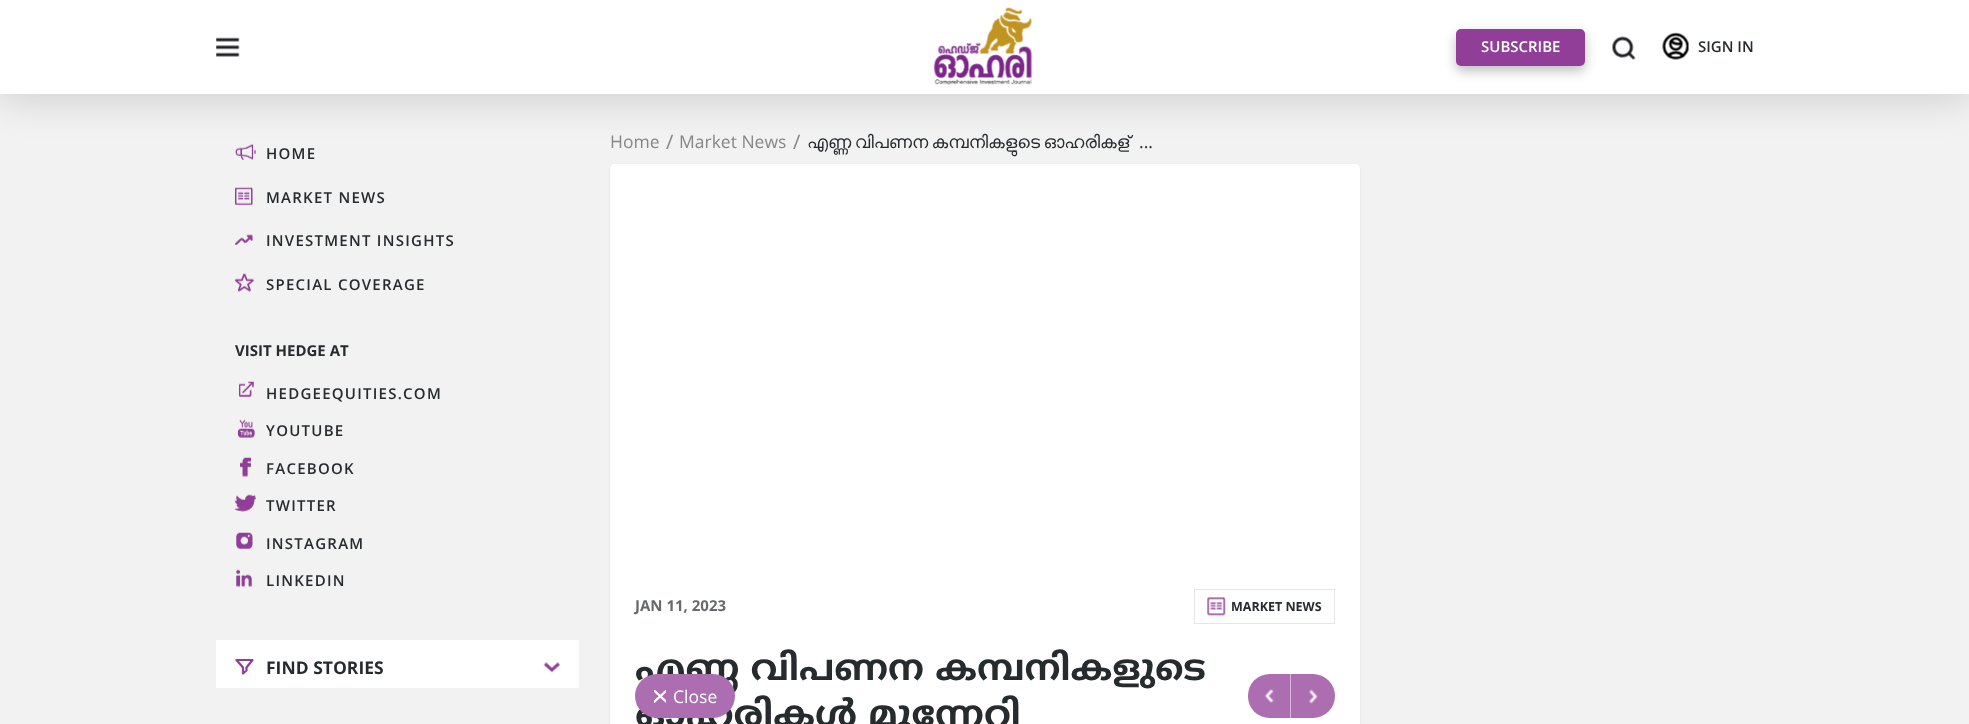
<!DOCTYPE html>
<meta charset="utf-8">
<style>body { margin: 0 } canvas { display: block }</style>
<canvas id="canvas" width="1969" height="724"></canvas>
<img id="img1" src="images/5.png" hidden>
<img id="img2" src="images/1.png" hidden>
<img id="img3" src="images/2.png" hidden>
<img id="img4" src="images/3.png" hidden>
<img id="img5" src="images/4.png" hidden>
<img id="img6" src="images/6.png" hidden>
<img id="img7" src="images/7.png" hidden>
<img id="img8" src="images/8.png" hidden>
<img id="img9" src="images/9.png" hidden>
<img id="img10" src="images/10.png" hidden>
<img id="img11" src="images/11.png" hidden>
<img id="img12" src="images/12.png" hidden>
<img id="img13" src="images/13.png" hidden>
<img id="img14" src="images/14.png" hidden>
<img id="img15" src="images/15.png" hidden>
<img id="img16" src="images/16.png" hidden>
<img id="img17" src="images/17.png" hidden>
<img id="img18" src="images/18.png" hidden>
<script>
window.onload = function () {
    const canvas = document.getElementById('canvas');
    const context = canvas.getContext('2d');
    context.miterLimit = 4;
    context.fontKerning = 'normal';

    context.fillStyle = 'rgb(242, 242, 242)';
    context.fillRect(0, 0, 1969, 724);
    context.drawImage(document.getElementById('img1'), 235, 143, 21, 17);
    context.fillStyle = 'rgba(0, 0, 0, 0.15)';
    context.filter = 'blur(19px)';
    context.beginPath();
    context.rect(0, 5, 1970, 94);
    context.fill();
    context.filter = 'none';
    context.fillStyle = 'rgb(255, 255, 255)';
    context.fillRect(0, 0, 1969, 94);
    context.drawImage(document.getElementById('img2'), 216, 37, 24, 20);
    context.drawImage(document.getElementById('img3'), 933, 7, 100, 78);
    context.fillStyle = 'rgba(0, 0, 0, 0.25)';
    context.filter = 'blur(6px)';
    context.beginPath();
    context.roundRect(1456, 34, 129, 37, 5);
    context.fill();
    context.filter = 'none';
    context.fillStyle = 'rgb(144, 62, 151)';
    context.beginPath();
    context.roundRect(1456, 29, 129, 37, 5);
    context.fill();
    context.drawImage(document.getElementById('img4'), 1612, 36, 24, 24);
    context.drawImage(document.getElementById('img5'), 1662, 32, 27, 28);
    context.drawImage(document.getElementById('img6'), 235, 187, 18, 18);
    context.drawImage(document.getElementById('img7'), 235, 234, 18, 11);
    context.drawImage(document.getElementById('img8'), 235, 273, 19, 19);
    context.drawImage(document.getElementById('img9'), 239, 381, 15, 16);
    context.drawImage(document.getElementById('img10'), 238, 419, 17, 19);
    context.drawImage(document.getElementById('img11'), 240, 457, 11, 20);
    context.drawImage(document.getElementById('img12'), 235, 494, 21, 18);
    context.drawImage(document.getElementById('img13'), 236, 532, 17, 17);
    context.drawImage(document.getElementById('img14'), 236, 569, 16, 18);
    context.fillStyle = 'rgb(255, 255, 255)';
    context.fillRect(216, 640, 363, 48);
    context.save();
    context.beginPath();
    context.rect(235, 659, 19, 16);
    context.clip();
    context.beginPath();
    context.moveTo(252.5, 660);
    context.lineTo(236.5, 660);
    context.lineTo(243, 667.5);
    context.lineTo(243, 673.5);
    context.lineTo(246.5, 670.5);
    context.lineTo(246.5, 667.5);
    context.closePath();
    context.strokeStyle = 'rgb(144, 62, 151)';
    context.lineWidth = 2.2;
    context.lineJoin = 'round';
    context.stroke();
    context.restore();
    context.drawImage(document.getElementById('img15'), 543, 662, 17, 11);
    context.fillStyle = 'rgba(0, 0, 0, 0.08)';
    context.filter = 'blur(1px)';
    context.beginPath();
    context.roundRect(610, 165, 750, 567, 5);
    context.fill();
    context.filter = 'none';
    context.fillStyle = 'rgb(255, 255, 255)';
    context.beginPath();
    context.moveTo(615, 164);
    context.lineTo(1355, 164);
    context.bezierCurveTo(1358, 164, 1360, 166, 1360, 169);
    context.lineTo(1360, 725);
    context.lineTo(610, 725);
    context.lineTo(610, 169);
    context.bezierCurveTo(610, 166, 612, 164, 615, 164);
    context.closePath();
    context.fill();
    context.strokeStyle = 'rgb(230, 230, 230)';
    context.strokeRect(1194.5, 589.5, 140, 34);
    context.drawImage(document.getElementById('img16'), 1207, 597, 19, 19);
    context.fillStyle = 'rgb(172, 110, 177)';
    context.beginPath();
    context.roundRect(1248, 674, 43, 44, [21.5, 0, 0, 21.5]);
    context.fill();
    context.fillStyle = 'rgb(214, 183, 216)';
    context.fillRect(1290, 674, 1, 44);
    context.drawImage(document.getElementById('img17'), 1264, 689, 10, 14);
    context.fillStyle = 'rgb(172, 110, 177)';
    context.beginPath();
    context.roundRect(1291, 674, 44, 44, [0, 22, 22, 0]);
    context.fill();
    context.drawImage(document.getElementById('img18'), 1308, 689, 10, 15);
    context.font = '600 15px Open Sans';
    context.fillStyle = 'rgb(255, 255, 255)';
    context.fillText('SUBSCRIBE', 1481, 52);
    context.fillStyle = 'rgb(38, 43, 46)';
    context.fillText('SIGN IN', 1698, 52);
    context.letterSpacing = '1.25px';
    context.fillText('HOME', 266, 159);
    context.fillText('MARKET NEWS', 266, 203);
    context.fillText('INVESTMENT INSIGHTS', 266, 246);
    context.fillText('SPECIAL COVERAGE', 266, 290);
    context.letterSpacing = '0px';
    context.font = 'bold 15px Open Sans';
    context.fillText('VISIT HEDGE AT', 235, 356);
    context.letterSpacing = '1.25px';
    context.font = '600 15px Open Sans';
    context.fillText('HEDGEEQUITIES.COM', 266, 399);
    context.fillText('YOUTUBE', 266, 436);
    context.fillText('FACEBOOK', 266, 474);
    context.fillText('TWITTER', 266, 511);
    context.fillText('INSTAGRAM', 266, 549);
    context.fillText('LINKEDIN', 266, 586);
    context.letterSpacing = '0px';
    context.font = 'bold 17.5px Open Sans';
    context.fillText('FIND STORIES', 266, 674);
    context.font = '17.5px Open Sans';
    context.fillStyle = 'rgb(135, 135, 135)';
    context.fillText('Home', 610, 148);
    context.font = '20px Open Sans';
    context.fillText('/', 666, 149);
    context.font = '17.5px Open Sans';
    context.fillText('Market News', 679, 148);
    context.font = '20px Open Sans';
    context.fillText('/', 793, 149);
    context.wordSpacing = '-1px';
    context.font = '17.5px FreeSans';
    context.fillStyle = 'rgb(38, 43, 46)';
    context.fillText('എണ്ണ വിപണന കമ്പനികളുടെ ഓഹരികള്', 807, 148);
    context.wordSpacing = '0px';
    context.font = '17.5px Open Sans';
    context.fillText('...', 1139, 148);
    context.font = 'bold 15px Open Sans';
    context.fillStyle = 'rgb(103, 106, 108)';
    context.fillText('JAN 11, 2023', 635, 611);
    context.font = 'bold 12.5px Open Sans';
    context.fillStyle = 'rgb(38, 43, 46)';
    context.fillText('MARKET NEWS', 1231, 611);
    context.font = 'bold 36.25px Noto Sans Malayalam';
    context.fillText('എണ്ണ വിപണന കമ്പനികളുടെ', 635, 680);
    context.fillText('ഓഹരികള്‍ മുന്നേറി', 635, 726);
    context.fillStyle = 'rgb(172, 110, 177)';
    context.beginPath();
    context.roundRect(635, 674, 100, 44, 22);
    context.fill();
    context.save();
    context.beginPath();
    context.rect(654, 690, 12, 13);
    context.clip();
    context.beginPath();
    context.moveTo(654, 690.5);
    context.lineTo(666.5, 702);
    context.moveTo(666.5, 690.5);
    context.lineTo(654, 702);
    context.strokeStyle = 'rgb(255, 255, 255)';
    context.lineWidth = 2.3;
    context.lineCap = 'square';
    context.stroke();
    context.restore();
    context.font = '17.5px Open Sans';
    context.fillStyle = 'rgb(255, 255, 255)';
    context.fillText('Close', 673, 703);
};
</script>
